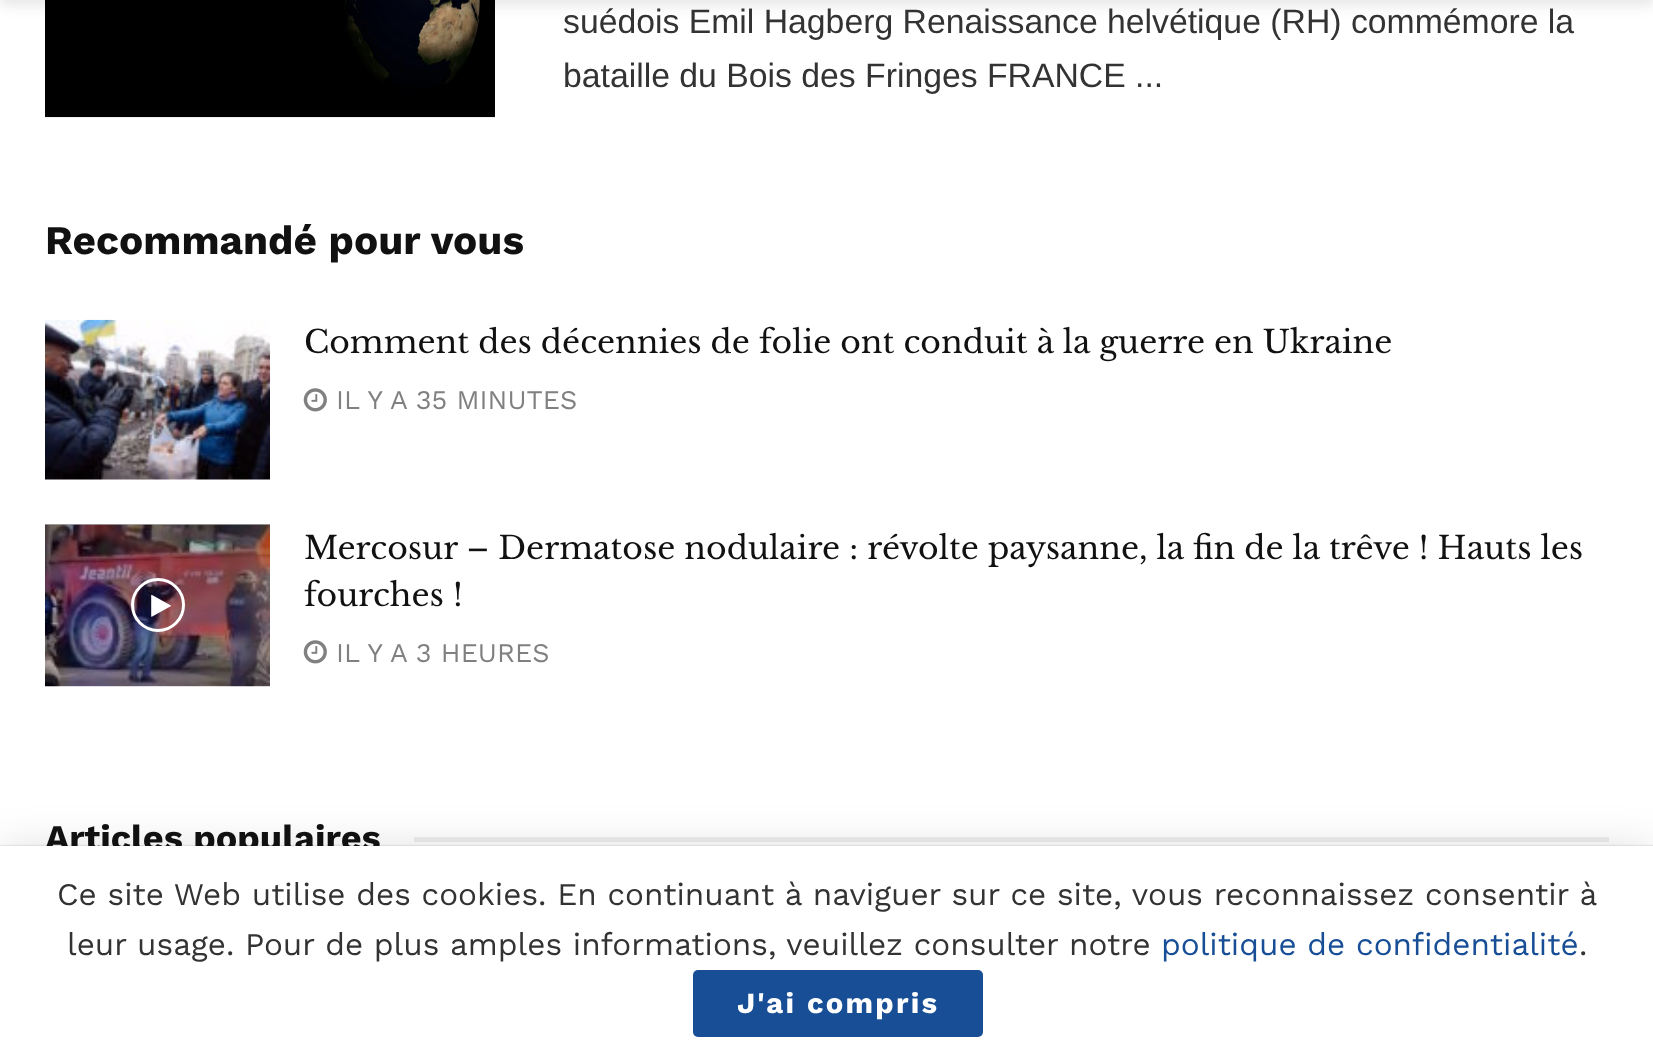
<!DOCTYPE html>
<meta charset="utf-8">
<style>body { margin: 0 } canvas { display: block }</style>
<canvas id="canvas" width="1653" height="1059"></canvas>
<img id="img1" src="images/1.png" hidden>
<img id="img2" src="images/3.png" hidden>
<img id="img3" src="images/2.png" hidden>
<img id="img4" src="images/4.png" hidden>
<img id="img5" src="images/5.png" hidden>
<img id="img6" src="images/6.png" hidden>
<script>
window.onload = function () {
    const canvas = document.getElementById('canvas');
    const context = canvas.getContext('2d');
    context.miterLimit = 4;
    context.fontKerning = 'normal';

    context.fillStyle = 'rgb(255, 255, 255)';
    context.fillRect(0, 0, 1653, 1059);
    context.drawImage(document.getElementById('img1'), 45, 0, 450, 118);
    context.fillStyle = 'rgba(0, 0, 0, 0.1)';
    context.filter = 'blur(7px)';
    context.beginPath();
    context.rect(0, -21, 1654, 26);
    context.fill();
    context.filter = 'none';
    context.drawImage(document.getElementById('img2'), 101, 479, 45, 1);
    context.drawImage(document.getElementById('img3'), 45, 319, 225, 161);
    context.drawImage(document.getElementById('img4'), 303, 388, 24, 24);
    context.fillStyle = 'rgb(173, 173, 173)';
    context.fillRect(45, 524, 225, 1);
    context.drawImage(document.getElementById('img2'), 101, 686, 45, 1);
    context.drawImage(document.getElementById('img5'), 45, 524, 225, 163);
    context.beginPath();
    context.arc(158, 605, 25.5, 0, 2 * Math.PI);
    context.strokeStyle = 'rgb(255, 255, 255)';
    context.lineWidth = 3;
    context.stroke();
    context.drawImage(document.getElementById('img6'), 151, 594, 20, 23);
    context.drawImage(document.getElementById('img4'), 303, 640, 24, 24);
    context.fillStyle = 'rgb(238, 238, 238)';
    context.fillRect(414, 837, 1195, 5);
    context.fillStyle = 'rgba(0, 0, 0, 0.15)';
    context.filter = 'blur(22.5px)';
    context.beginPath();
    context.rect(0, 851, 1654, 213);
    context.fill();
    context.filter = 'none';
    context.fillStyle = 'rgba(0, 0, 0, 0.2)';
    context.filter = 'blur(1px)';
    context.beginPath();
    context.rect(0, 846, 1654, 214);
    context.fill();
    context.filter = 'none';
    context.font = '33.75px Liberation Sans';
    context.fillStyle = 'rgb(51, 51, 51)';
    context.fillText('suédois Emil Hagberg Renaissance helvétique (RH) commémore la', 563, 33);
    context.fillText('bataille du Bois des Fringes FRANCE ...', 563, 87);
    context.font = 'bold 40.5px Work Sans';
    context.fillStyle = 'rgb(17, 17, 17)';
    context.fillText('Recommandé pour vous', 45, 254);
    context.font = '31.5px Libre Baskerville';
    context.fillText('Comment des décennies de folie ont conduit à la guerre en Ukraine', 304, 353);
    context.font = '27px Work Sans';
    context.fillStyle = 'rgb(128, 128, 128)';
    context.fillText('IL Y A 35 MINUTES', 336, 409);
    context.font = '31.5px Libre Baskerville';
    context.fillStyle = 'rgb(17, 17, 17)';
    context.fillText('Mercosur – Dermatose nodulaire : révolte paysanne, la fin de la trêve ! Hauts les', 304, 559);
    context.fillText('fourches !', 304, 606);
    context.font = '27px Work Sans';
    context.fillStyle = 'rgb(128, 128, 128)';
    context.fillText('IL Y A 3 HEURES', 336, 662);
    context.font = 'bold 36px Work Sans';
    context.fillStyle = 'rgb(17, 17, 17)';
    context.fillText('Articles populaires', 45, 850);
    context.fillStyle = 'rgb(255, 255, 255)';
    context.fillRect(0, 846, 1653, 213);
    context.font = '31.5px Work Sans';
    context.fillStyle = 'rgb(51, 51, 51)';
    context.fillText('Ce site Web utilise des cookies. En continuant à naviguer sur ce site, vous reconnaissez consentir à', 57, 905);
    context.fillText('leur usage. Pour de plus amples informations, veuillez consulter notre', 67, 955);
    context.fillStyle = 'rgb(23, 78, 150)';
    context.fillText('politique de confidentialité', 1161, 955);
    context.fillStyle = 'rgb(51, 51, 51)';
    context.fillText('.', 1579, 955);
    context.fillStyle = 'rgb(23, 78, 150)';
    context.beginPath();
    context.roundRect(693, 970, 290, 67, 5);
    context.fill();
    context.letterSpacing = '2.25px';
    context.font = 'bold 29.25px Work Sans';
    context.fillStyle = 'rgb(255, 255, 255)';
    context.fillText('J\'ai compris', 737, 1013);
};
</script>
